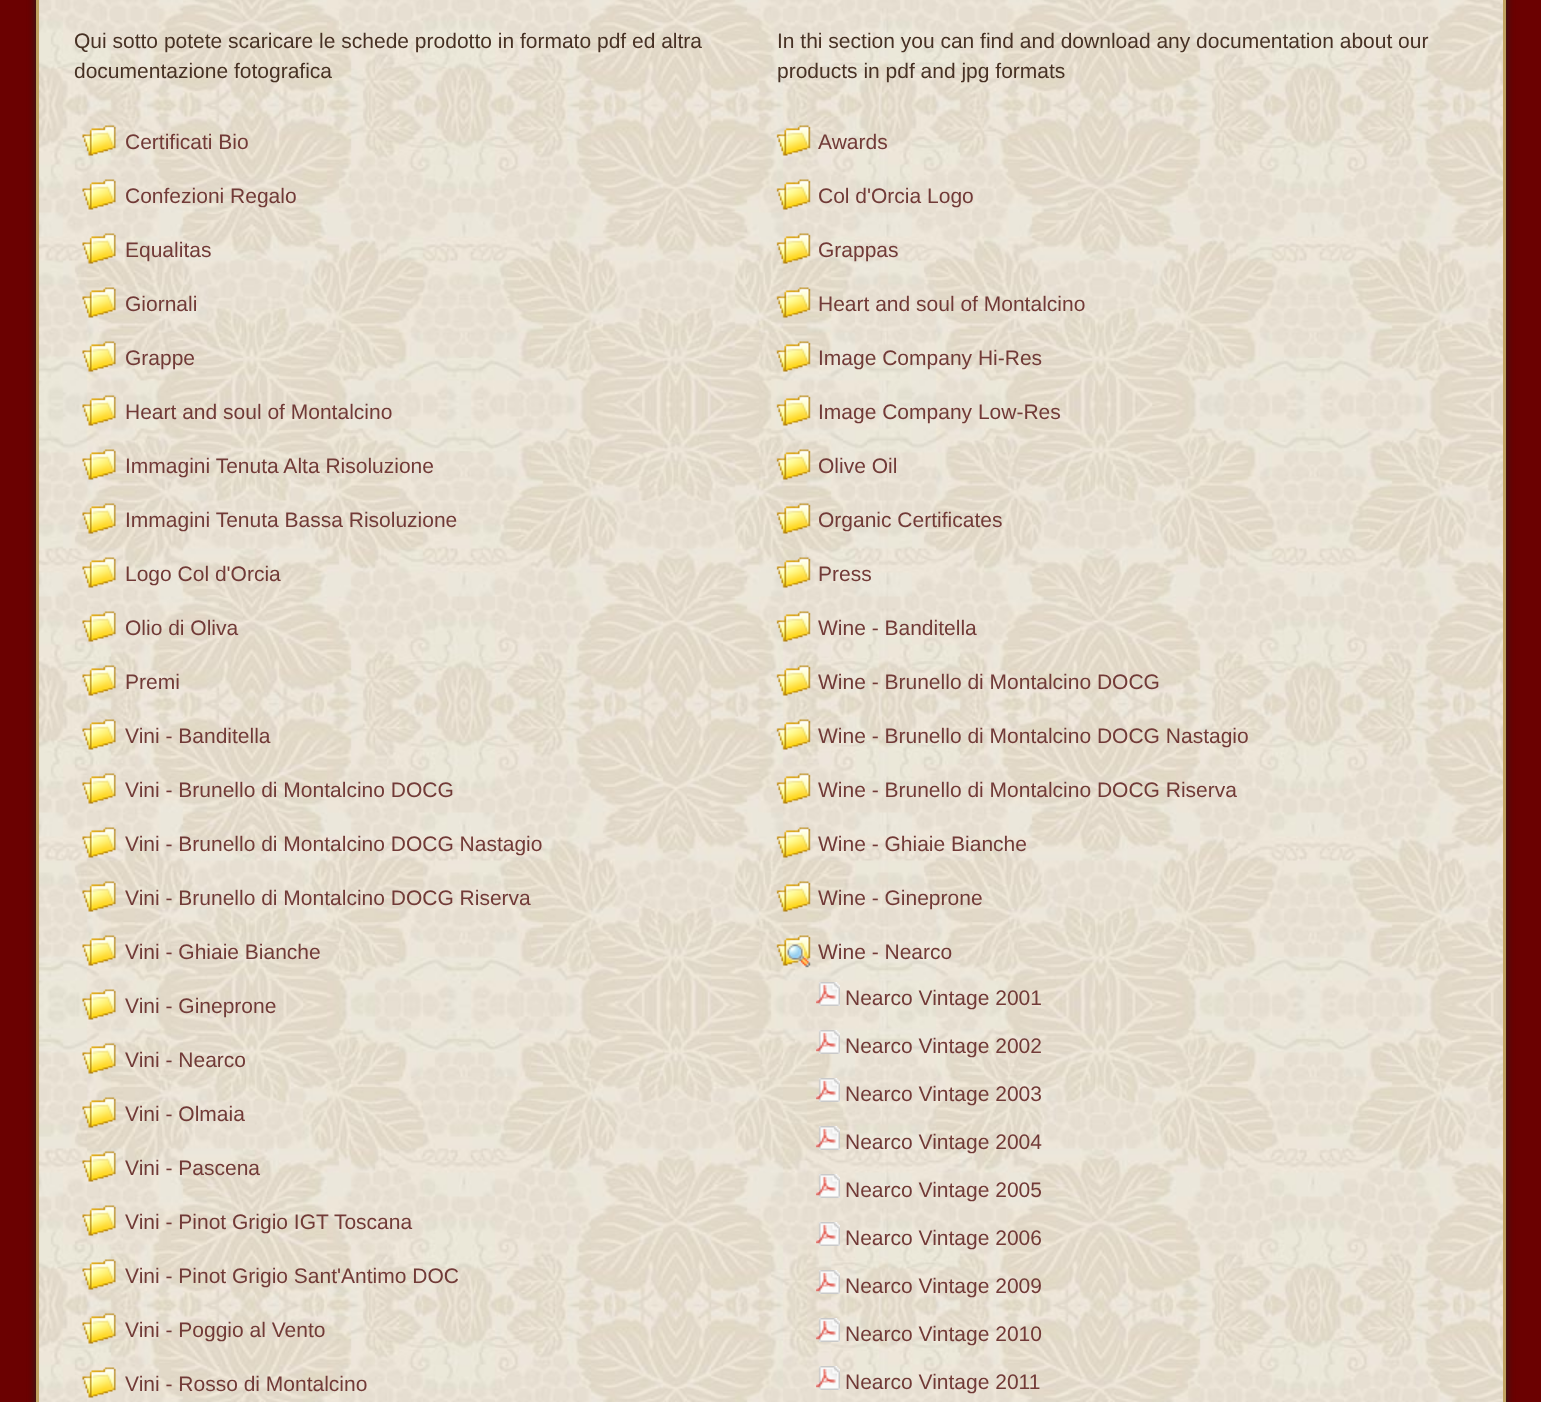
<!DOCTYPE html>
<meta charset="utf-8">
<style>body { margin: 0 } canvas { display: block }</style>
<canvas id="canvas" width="1541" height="1402"></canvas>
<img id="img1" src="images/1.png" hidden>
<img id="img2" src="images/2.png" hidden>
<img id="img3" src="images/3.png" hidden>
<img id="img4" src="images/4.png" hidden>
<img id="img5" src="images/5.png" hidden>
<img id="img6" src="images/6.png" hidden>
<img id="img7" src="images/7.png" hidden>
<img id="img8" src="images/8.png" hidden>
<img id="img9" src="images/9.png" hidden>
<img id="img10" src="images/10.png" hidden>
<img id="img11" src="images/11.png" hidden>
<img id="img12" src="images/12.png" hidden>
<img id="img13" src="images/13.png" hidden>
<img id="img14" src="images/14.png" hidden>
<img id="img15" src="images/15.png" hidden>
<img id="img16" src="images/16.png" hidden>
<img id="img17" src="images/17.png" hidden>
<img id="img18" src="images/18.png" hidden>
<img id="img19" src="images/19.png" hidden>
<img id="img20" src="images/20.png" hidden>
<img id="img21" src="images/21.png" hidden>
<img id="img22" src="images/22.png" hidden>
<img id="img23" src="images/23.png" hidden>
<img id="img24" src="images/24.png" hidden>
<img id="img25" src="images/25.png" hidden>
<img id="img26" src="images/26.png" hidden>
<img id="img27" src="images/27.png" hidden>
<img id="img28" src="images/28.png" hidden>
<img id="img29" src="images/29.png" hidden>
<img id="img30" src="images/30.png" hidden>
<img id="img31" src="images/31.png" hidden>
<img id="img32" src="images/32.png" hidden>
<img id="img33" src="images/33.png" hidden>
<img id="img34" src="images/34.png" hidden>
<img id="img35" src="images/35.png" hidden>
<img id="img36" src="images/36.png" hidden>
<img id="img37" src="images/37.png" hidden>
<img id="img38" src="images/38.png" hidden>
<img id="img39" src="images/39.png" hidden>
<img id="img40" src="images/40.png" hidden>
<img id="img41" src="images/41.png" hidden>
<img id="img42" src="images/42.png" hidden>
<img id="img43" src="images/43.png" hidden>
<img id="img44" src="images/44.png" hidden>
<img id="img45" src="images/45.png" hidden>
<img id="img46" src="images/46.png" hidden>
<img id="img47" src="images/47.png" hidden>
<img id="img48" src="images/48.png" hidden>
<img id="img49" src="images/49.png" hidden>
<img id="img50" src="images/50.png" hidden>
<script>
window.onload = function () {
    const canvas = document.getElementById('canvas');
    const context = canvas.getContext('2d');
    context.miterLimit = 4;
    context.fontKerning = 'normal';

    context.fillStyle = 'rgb(107, 1, 1)';
    context.fillRect(0, 0, 1541, 1402);
    context.fillStyle = 'rgb(34, 34, 34)';
    context.filter = 'blur(4.5px)';
    context.beginPath();
    context.rect(36, -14, 1470, 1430);
    context.fill();
    context.filter = 'none';
    context.drawImage(document.getElementById('img1'), 39, 0, 1464, 1402);
    context.strokeStyle = 'rgb(192, 163, 97)';
    context.lineWidth = 3;
    context.strokeRect(37.5, -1.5, 1467, 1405);
    context.drawImage(document.getElementById('img2'), 82, 125, 34, 31);
    context.drawImage(document.getElementById('img3'), 82, 179, 34, 31);
    context.drawImage(document.getElementById('img4'), 82, 233, 34, 31);
    context.drawImage(document.getElementById('img5'), 82, 287, 34, 31);
    context.drawImage(document.getElementById('img6'), 82, 341, 34, 31);
    context.drawImage(document.getElementById('img7'), 82, 395, 34, 31);
    context.drawImage(document.getElementById('img8'), 82, 449, 34, 31);
    context.drawImage(document.getElementById('img9'), 82, 503, 34, 31);
    context.drawImage(document.getElementById('img10'), 82, 557, 34, 31);
    context.drawImage(document.getElementById('img11'), 82, 611, 34, 31);
    context.drawImage(document.getElementById('img12'), 82, 665, 34, 31);
    context.drawImage(document.getElementById('img13'), 82, 719, 34, 31);
    context.drawImage(document.getElementById('img14'), 82, 773, 34, 31);
    context.drawImage(document.getElementById('img15'), 82, 827, 34, 31);
    context.drawImage(document.getElementById('img16'), 82, 881, 34, 31);
    context.drawImage(document.getElementById('img17'), 82, 935, 34, 31);
    context.drawImage(document.getElementById('img18'), 82, 989, 34, 31);
    context.drawImage(document.getElementById('img19'), 82, 1043, 34, 31);
    context.drawImage(document.getElementById('img20'), 82, 1097, 34, 31);
    context.drawImage(document.getElementById('img21'), 82, 1151, 34, 31);
    context.drawImage(document.getElementById('img22'), 82, 1205, 34, 31);
    context.drawImage(document.getElementById('img23'), 82, 1259, 34, 31);
    context.drawImage(document.getElementById('img24'), 82, 1313, 34, 31);
    context.drawImage(document.getElementById('img25'), 82, 1367, 34, 31);
    context.drawImage(document.getElementById('img26'), 776, 125, 35, 31);
    context.drawImage(document.getElementById('img27'), 776, 179, 35, 31);
    context.drawImage(document.getElementById('img28'), 776, 233, 35, 31);
    context.drawImage(document.getElementById('img29'), 776, 287, 35, 31);
    context.drawImage(document.getElementById('img30'), 776, 341, 35, 31);
    context.drawImage(document.getElementById('img31'), 776, 395, 35, 31);
    context.drawImage(document.getElementById('img32'), 776, 449, 35, 31);
    context.drawImage(document.getElementById('img33'), 776, 503, 35, 31);
    context.drawImage(document.getElementById('img34'), 776, 557, 35, 31);
    context.drawImage(document.getElementById('img35'), 776, 611, 35, 31);
    context.drawImage(document.getElementById('img36'), 776, 665, 35, 31);
    context.drawImage(document.getElementById('img37'), 776, 719, 35, 31);
    context.drawImage(document.getElementById('img38'), 776, 773, 35, 31);
    context.drawImage(document.getElementById('img39'), 776, 827, 35, 31);
    context.drawImage(document.getElementById('img40'), 776, 881, 35, 31);
    context.drawImage(document.getElementById('img41'), 776, 935, 35, 33);
    context.drawImage(document.getElementById('img42'), 816, 982, 24, 24);
    context.drawImage(document.getElementById('img43'), 816, 1030, 24, 24);
    context.drawImage(document.getElementById('img44'), 816, 1078, 24, 24);
    context.drawImage(document.getElementById('img45'), 816, 1126, 24, 24);
    context.drawImage(document.getElementById('img46'), 816, 1174, 24, 24);
    context.drawImage(document.getElementById('img47'), 816, 1222, 24, 24);
    context.drawImage(document.getElementById('img48'), 816, 1270, 24, 24);
    context.drawImage(document.getElementById('img49'), 816, 1318, 24, 24);
    context.drawImage(document.getElementById('img50'), 816, 1366, 24, 24);
    context.font = '21px Liberation Sans';
    context.fillStyle = 'rgb(71, 49, 36)';
    context.fillText('Qui sotto potete scaricare le schede prodotto in formato pdf ed altra', 74, 48);
    context.fillText('documentazione fotografica', 74, 78);
    context.fillText('In thi section you can find and download any documentation about our', 777, 48);
    context.fillText('products in pdf and jpg formats', 777, 78);
    context.fillStyle = 'rgb(113, 58, 55)';
    context.fillText('Certificati Bio', 125, 149);
    context.fillText('Confezioni Regalo', 125, 203);
    context.fillText('Equalitas', 125, 257);
    context.fillText('Giornali', 125, 311);
    context.fillText('Grappe', 125, 365);
    context.fillText('Heart and soul of Montalcino', 125, 419);
    context.fillText('Immagini Tenuta Alta Risoluzione', 125, 473);
    context.fillText('Immagini Tenuta Bassa Risoluzione', 125, 527);
    context.fillText('Logo Col d\'Orcia', 125, 581);
    context.fillText('Olio di Oliva', 125, 635);
    context.fillText('Premi', 125, 689);
    context.fillText('Vini - Banditella', 125, 743);
    context.fillText('Vini - Brunello di Montalcino DOCG', 125, 797);
    context.fillText('Vini - Brunello di Montalcino DOCG Nastagio', 125, 851);
    context.fillText('Vini - Brunello di Montalcino DOCG Riserva', 125, 905);
    context.fillText('Vini - Ghiaie Bianche', 125, 959);
    context.fillText('Vini - Gineprone', 125, 1013);
    context.fillText('Vini - Nearco', 125, 1067);
    context.fillText('Vini - Olmaia', 125, 1121);
    context.fillText('Vini - Pascena', 125, 1175);
    context.fillText('Vini - Pinot Grigio IGT Toscana', 125, 1229);
    context.fillText('Vini - Pinot Grigio Sant\'Antimo DOC', 125, 1283);
    context.fillText('Vini - Poggio al Vento', 125, 1337);
    context.fillText('Vini - Rosso di Montalcino', 125, 1391);
    context.fillText('Awards', 818, 149);
    context.fillText('Col d\'Orcia Logo', 818, 203);
    context.fillText('Grappas', 818, 257);
    context.fillText('Heart and soul of Montalcino', 818, 311);
    context.fillText('Image Company Hi-Res', 818, 365);
    context.fillText('Image Company Low-Res', 818, 419);
    context.fillText('Olive Oil', 818, 473);
    context.fillText('Organic Certificates', 818, 527);
    context.fillText('Press', 818, 581);
    context.fillText('Wine - Banditella', 818, 635);
    context.fillText('Wine - Brunello di Montalcino DOCG', 818, 689);
    context.fillText('Wine - Brunello di Montalcino DOCG Nastagio', 818, 743);
    context.fillText('Wine - Brunello di Montalcino DOCG Riserva', 818, 797);
    context.fillText('Wine - Ghiaie Bianche', 818, 851);
    context.fillText('Wine - Gineprone', 818, 905);
    context.fillText('Wine - Nearco', 818, 959);
    context.fillText('Nearco Vintage 2001', 845, 1005);
    context.fillText('Nearco Vintage 2002', 845, 1053);
    context.fillText('Nearco Vintage 2003', 845, 1101);
    context.fillText('Nearco Vintage 2004', 845, 1149);
    context.fillText('Nearco Vintage 2005', 845, 1197);
    context.fillText('Nearco Vintage 2006', 845, 1245);
    context.fillText('Nearco Vintage 2009', 845, 1293);
    context.fillText('Nearco Vintage 2010', 845, 1341);
    context.fillText('Nearco Vintage 2011', 845, 1389);
};
</script>
